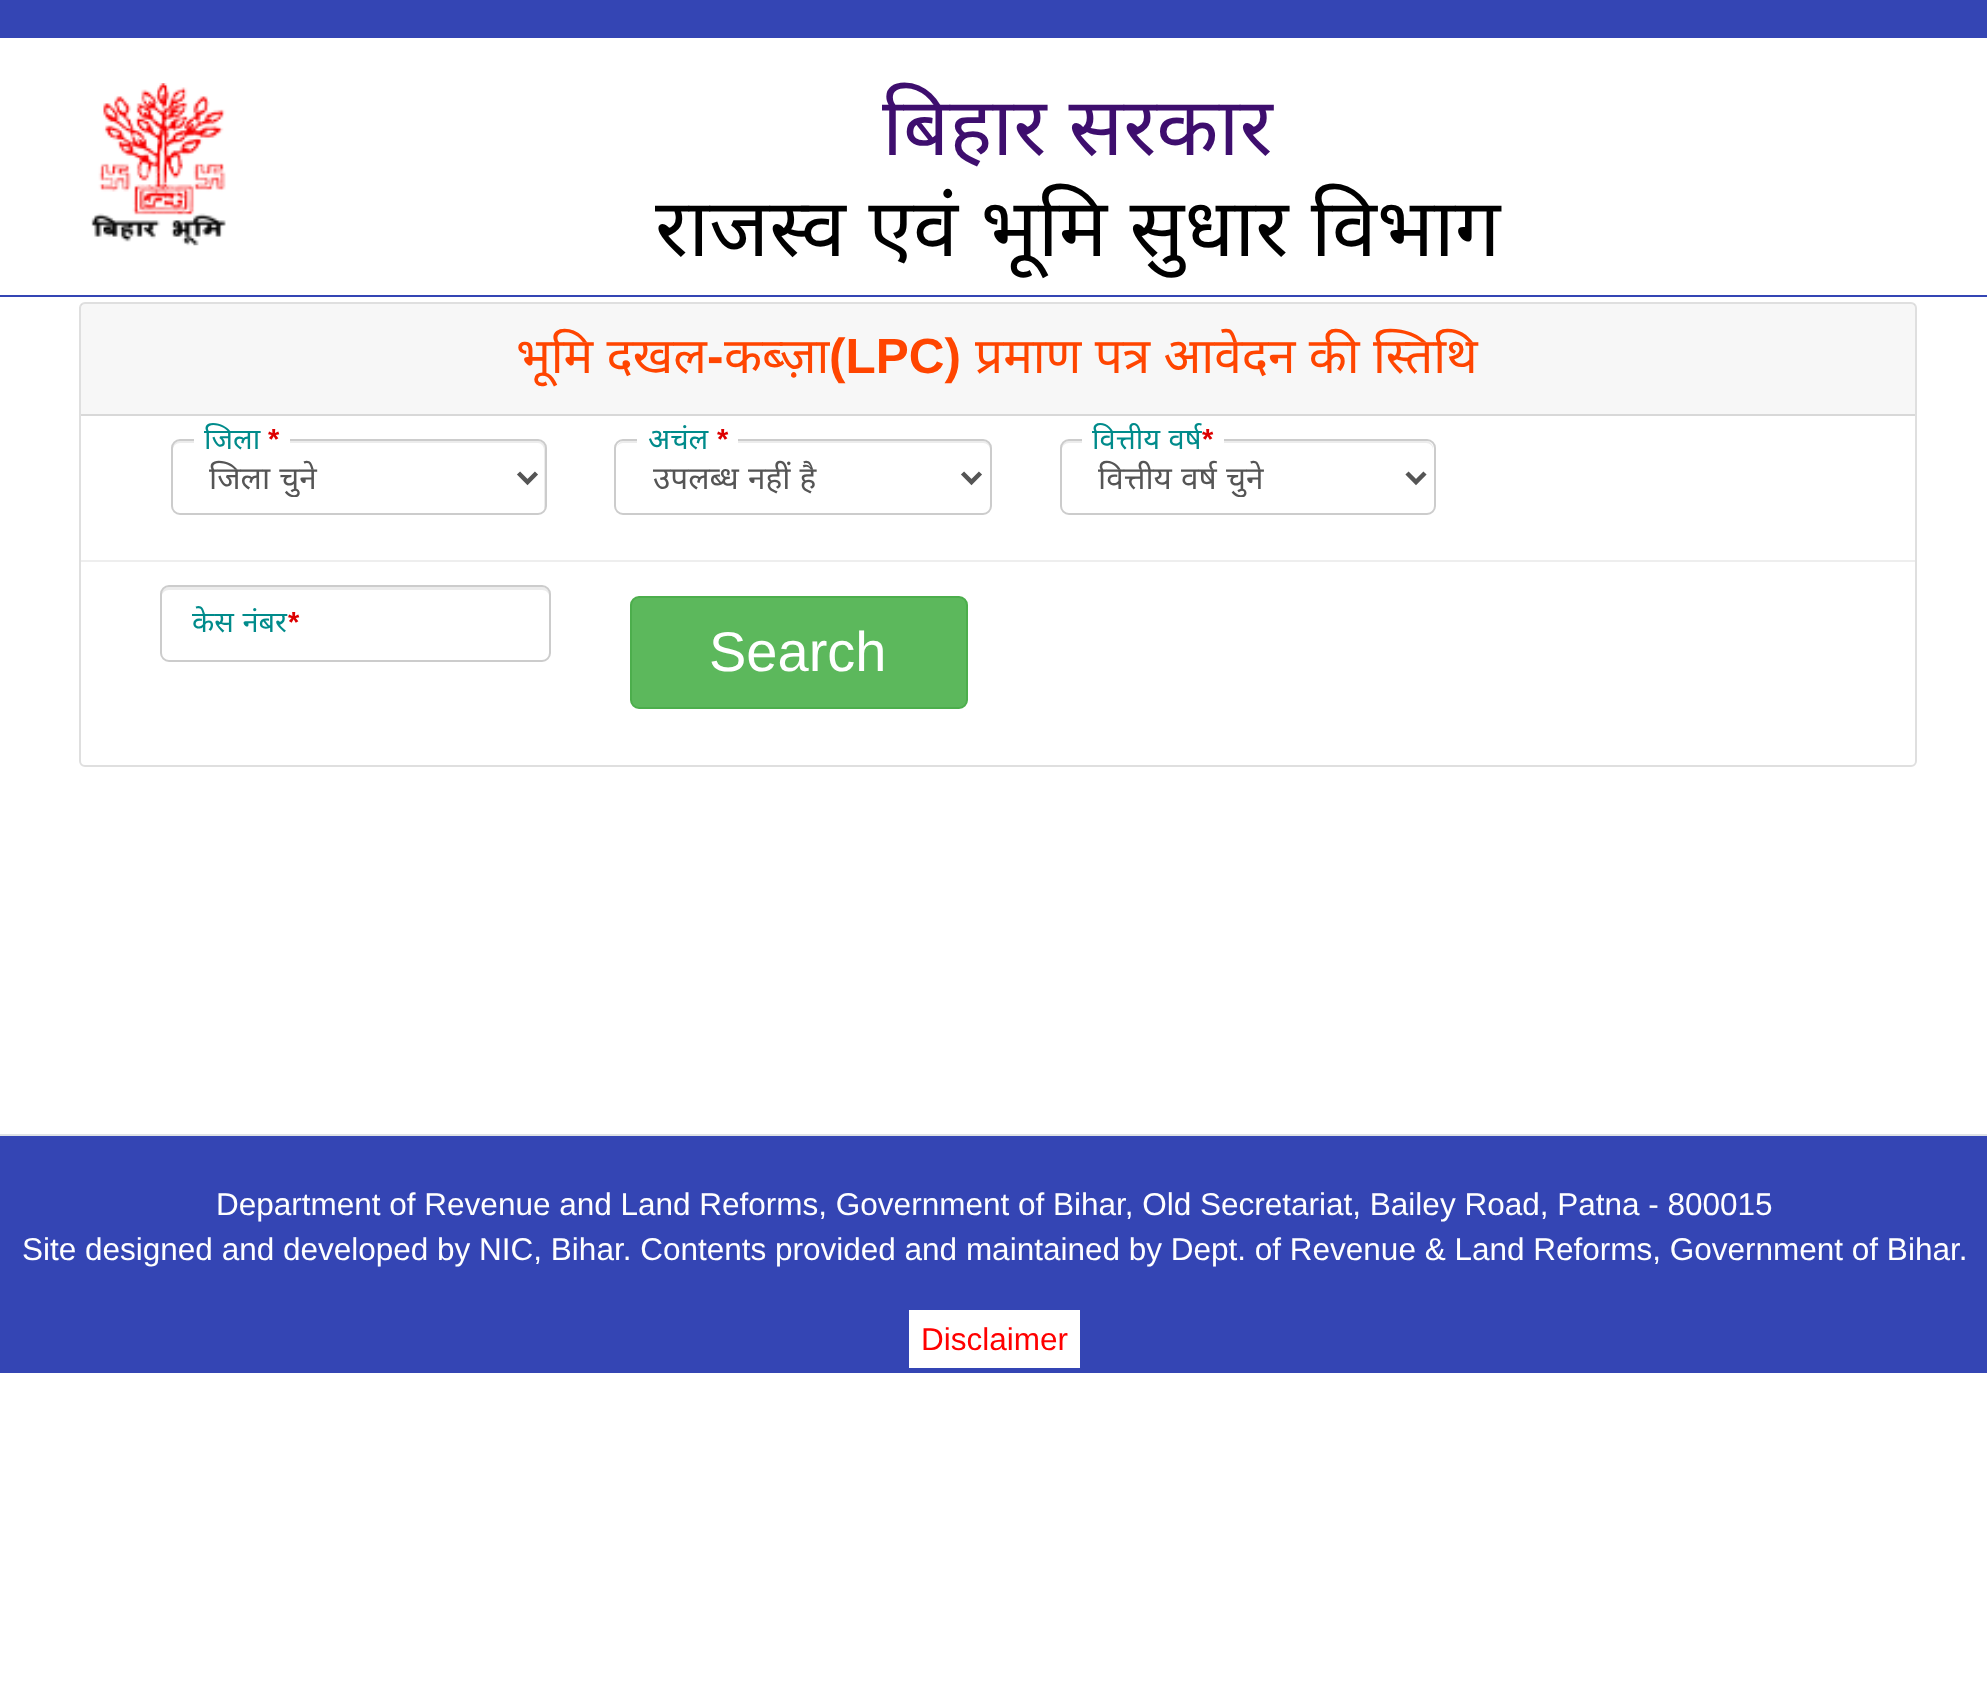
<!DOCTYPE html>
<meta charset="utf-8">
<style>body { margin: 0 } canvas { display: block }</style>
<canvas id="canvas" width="1987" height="1698"></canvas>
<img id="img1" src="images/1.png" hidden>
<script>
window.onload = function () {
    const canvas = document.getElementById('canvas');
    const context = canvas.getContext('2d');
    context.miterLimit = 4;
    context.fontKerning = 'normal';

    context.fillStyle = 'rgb(255, 255, 255)';
    context.fillRect(0, 0, 1987, 1698);
    context.fillStyle = 'rgb(52, 69, 180)';
    context.fillRect(0, 0, 1987, 38);
    context.fillRect(0, 295, 1987, 2);
    context.drawImage(document.getElementById('img1'), 91, 83, 135, 163);
    context.beginPath();
    context.roundRect(80, 303, 1836, 463, 5);
    context.strokeStyle = 'rgb(223, 223, 223)';
    context.lineWidth = 2;
    context.stroke();
    context.fillStyle = 'rgba(0, 0, 0, 0.03)';
    context.fillRect(81, 304, 1834, 110);
    context.fillStyle = 'rgb(216, 216, 216)';
    context.fillRect(81, 414, 1834, 2);
    context.fillStyle = 'rgb(236, 236, 236)';
    context.beginPath();
    context.moveTo(180, 443);
    context.lineTo(538, 443);
    context.bezierCurveTo(541, 443, 544, 446, 544, 450);
    context.lineTo(544, 510);
    context.bezierCurveTo(545, 509, 545, 507, 545, 506);
    context.lineTo(545, 448);
    context.bezierCurveTo(545, 444, 542, 441, 538, 441);
    context.lineTo(180, 441);
    context.bezierCurveTo(176, 441, 173, 444, 173, 448);
    context.lineTo(173, 450);
    context.bezierCurveTo(173, 446, 176, 443, 180, 443);
    context.closePath();
    context.fill();
    context.beginPath();
    context.roundRect(172, 440, 374, 74, 8);
    context.strokeStyle = 'rgb(204, 204, 204)';
    context.stroke();
    context.fillStyle = 'rgb(255, 255, 255)';
    context.fillRect(194, 439, 96, 4);
    context.beginPath();
    context.moveTo(518.5, 473);
    context.lineTo(527.5, 482);
    context.lineTo(536.5, 473);
    context.strokeStyle = 'rgb(85, 85, 85)';
    context.lineWidth = 4.5;
    context.stroke();
    context.fillStyle = 'rgb(236, 236, 236)';
    context.beginPath();
    context.moveTo(623, 443);
    context.lineTo(983, 443);
    context.bezierCurveTo(987, 443, 990, 446, 990, 450);
    context.lineTo(990, 448);
    context.bezierCurveTo(990, 444, 987, 441, 983, 441);
    context.lineTo(624, 441);
    context.bezierCurveTo(621, 441, 618, 443, 617, 446);
    context.bezierCurveTo(619, 444, 621, 443, 623, 443);
    context.closePath();
    context.fill();
    context.beginPath();
    context.roundRect(615, 440, 376, 74, 8);
    context.strokeStyle = 'rgb(204, 204, 204)';
    context.lineWidth = 2;
    context.stroke();
    context.fillStyle = 'rgb(255, 255, 255)';
    context.fillRect(637, 439, 101, 4);
    context.beginPath();
    context.moveTo(962.5, 473);
    context.lineTo(971.5, 482);
    context.lineTo(980.5, 473);
    context.strokeStyle = 'rgb(85, 85, 85)';
    context.lineWidth = 4.5;
    context.stroke();
    context.fillStyle = 'rgb(236, 236, 236)';
    context.beginPath();
    context.moveTo(1069, 443);
    context.lineTo(1426, 443);
    context.bezierCurveTo(1430, 443, 1433, 446, 1433, 450);
    context.lineTo(1433, 448);
    context.bezierCurveTo(1433, 444, 1430, 441, 1426, 441);
    context.lineTo(1069, 441);
    context.bezierCurveTo(1065, 441, 1062, 444, 1062, 448);
    context.lineTo(1062, 450);
    context.bezierCurveTo(1062, 446, 1065, 443, 1069, 443);
    context.closePath();
    context.fill();
    context.beginPath();
    context.roundRect(1061, 440, 374, 74, 8);
    context.strokeStyle = 'rgb(204, 204, 204)';
    context.lineWidth = 2;
    context.stroke();
    context.fillStyle = 'rgb(255, 255, 255)';
    context.fillRect(1082, 439, 142, 4);
    context.beginPath();
    context.moveTo(1407, 473);
    context.lineTo(1416, 482);
    context.lineTo(1425, 473);
    context.strokeStyle = 'rgb(85, 85, 85)';
    context.lineWidth = 4.5;
    context.stroke();
    context.fillStyle = 'rgb(238, 238, 238)';
    context.fillRect(81, 560, 1834, 2);
    context.fillStyle = 'rgb(236, 236, 236)';
    context.beginPath();
    context.moveTo(169, 590);
    context.lineTo(542, 590);
    context.bezierCurveTo(546, 590, 549, 593, 549, 596);
    context.lineTo(549, 594);
    context.bezierCurveTo(549, 590, 546, 587, 542, 587);
    context.lineTo(169, 587);
    context.bezierCurveTo(165, 587, 162, 590, 162, 594);
    context.lineTo(162, 596);
    context.bezierCurveTo(162, 593, 165, 590, 169, 590);
    context.closePath();
    context.fill();
    context.beginPath();
    context.roundRect(161, 586, 389, 75, 8);
    context.strokeStyle = 'rgb(204, 204, 204)';
    context.lineWidth = 2;
    context.stroke();
    context.fillStyle = 'rgb(92, 184, 92)';
    context.beginPath();
    context.roundRect(631, 597, 336, 111, 8);
    context.fill();
    context.strokeStyle = 'rgb(76, 174, 76)';
    context.stroke();
    context.fillStyle = 'rgb(52, 69, 180)';
    context.fillRect(0, 1136, 1987, 237);
    context.fillStyle = 'rgb(222, 226, 230)';
    context.fillRect(0, 1134, 1987, 2);
    context.fillStyle = 'rgb(255, 255, 255)';
    context.fillRect(909, 1310, 171, 58);
    context.wordSpacing = '1px';
    context.font = '81px Noto Sans';
    context.fillStyle = 'rgb(62, 14, 110)';
    context.fillText('बिहार सरकार', 882, 155);
    context.wordSpacing = '1.5px';
    context.fillStyle = 'rgb(0, 0, 0)';
    context.fillText('राजस्व एवं भूमि सुधार विभाग', 655, 256);
    context.wordSpacing = '0.5px';
    context.font = '49.5px Noto Sans';
    context.fillStyle = 'rgb(255, 69, 0)';
    context.fillText('भूमि दखल', 516, 373);
    context.wordSpacing = '0px';
    context.font = 'bold 49.5px Liberation Sans';
    context.fillText('-', 707, 373);
    context.font = '49.5px Noto Sans';
    context.fillText('कब्ज़ा', 724, 373);
    context.font = 'bold 49.5px Liberation Sans';
    context.fillText('(LPC)', 829, 373);
    context.wordSpacing = '0.5px';
    context.font = '49.5px Noto Sans';
    context.fillText('प्रमाण पत्र आवेदन की स्तिथि', 975, 373);
    context.wordSpacing = '0px';
    context.font = '29px Noto Sans';
    context.fillStyle = 'rgb(0, 139, 139)';
    context.fillText('जिला', 204, 449);
    context.font = 'bold 29px Liberation Sans';
    context.fillStyle = 'rgb(221, 0, 0)';
    context.fillText('*', 268, 449);
    context.save();
    context.beginPath();
    context.rect(209, 457, 273, 40);
    context.clip();
    context.wordSpacing = '1px';
    context.font = '31.5px Noto Sans';
    context.fillStyle = 'rgb(85, 85, 85)';
    context.fillText('जिला चुने', 209, 489);
    context.restore();
    context.font = '29px Noto Sans';
    context.fillStyle = 'rgb(0, 139, 139)';
    context.fillText('अचंल', 648, 449);
    context.font = 'bold 29px Liberation Sans';
    context.fillStyle = 'rgb(221, 0, 0)';
    context.fillText('*', 717, 449);
    context.wordSpacing = '1px';
    context.font = '31.5px Noto Sans';
    context.fillStyle = 'rgb(85, 85, 85)';
    context.fillText('उपलब्ध नहीं है', 653, 489);
    context.font = '29px Noto Sans';
    context.fillStyle = 'rgb(0, 139, 139)';
    context.fillText('वित्तीय वर्ष', 1092, 449);
    context.wordSpacing = '0px';
    context.font = 'bold 29px Liberation Sans';
    context.fillStyle = 'rgb(221, 0, 0)';
    context.fillText('*', 1202, 449);
    context.save();
    context.beginPath();
    context.rect(1098, 457, 272, 40);
    context.clip();
    context.wordSpacing = '1px';
    context.font = '31.5px Noto Sans';
    context.fillStyle = 'rgb(85, 85, 85)';
    context.fillText('वित्तीय वर्ष चुने', 1098, 489);
    context.restore();
    context.wordSpacing = '1px';
    context.font = '29px Noto Sans';
    context.fillStyle = 'rgb(0, 139, 139)';
    context.fillText('केस नंबर', 192, 632);
    context.wordSpacing = '0px';
    context.font = 'bold 29px Liberation Sans';
    context.fillStyle = 'rgb(221, 0, 0)';
    context.fillText('*', 288, 632);
    context.font = '56px Liberation Sans';
    context.fillStyle = 'rgb(255, 255, 255)';
    context.fillText('Search', 709, 671);
    context.font = '31.5px Liberation Sans';
    context.fillText('Department of Revenue and Land Reforms, Government of Bihar, Old Secretariat, Bailey Road, Patna - 800015', 216, 1215);
    context.fillText('Site designed and developed by NIC, Bihar. Contents provided and maintained by Dept. of Revenue & Land Reforms, Government of Bihar.', 22, 1260);
    context.fillStyle = 'rgb(255, 0, 0)';
    context.fillText('Disclaimer', 921, 1350);
};
</script>
